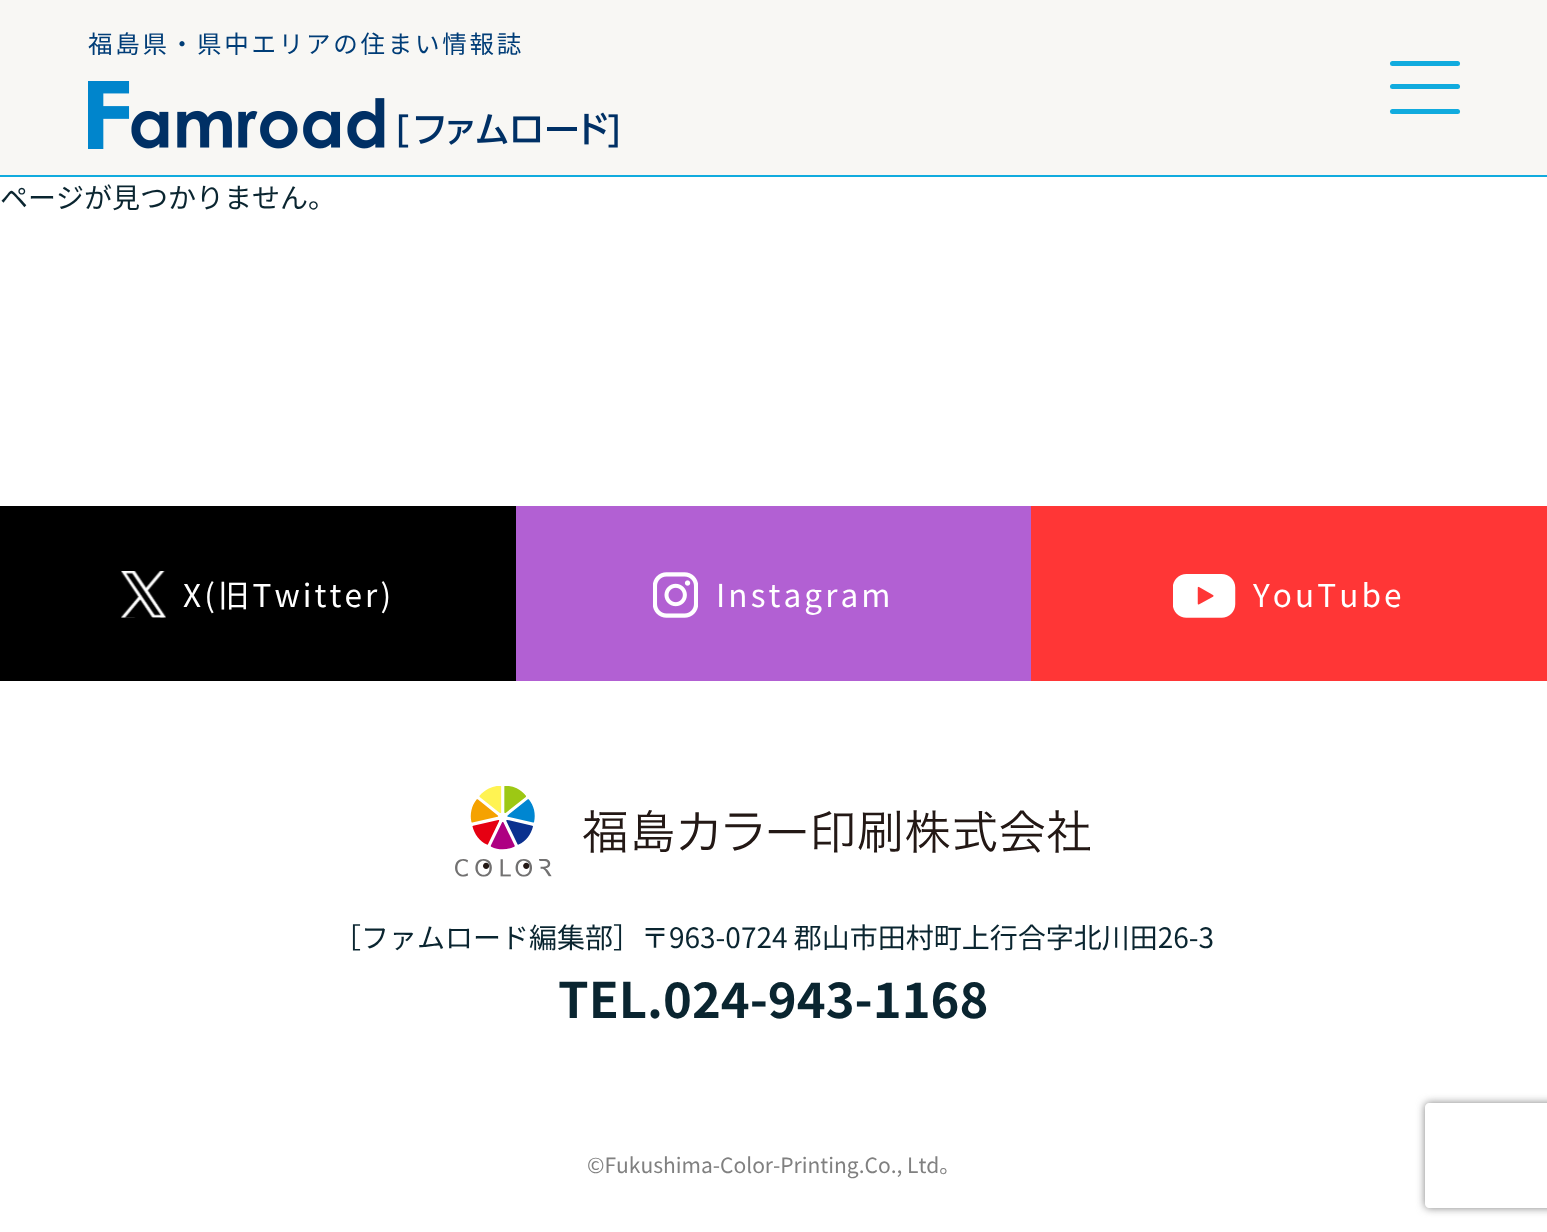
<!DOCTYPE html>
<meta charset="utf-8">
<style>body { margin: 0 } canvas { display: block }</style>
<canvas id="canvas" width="1547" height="1232"></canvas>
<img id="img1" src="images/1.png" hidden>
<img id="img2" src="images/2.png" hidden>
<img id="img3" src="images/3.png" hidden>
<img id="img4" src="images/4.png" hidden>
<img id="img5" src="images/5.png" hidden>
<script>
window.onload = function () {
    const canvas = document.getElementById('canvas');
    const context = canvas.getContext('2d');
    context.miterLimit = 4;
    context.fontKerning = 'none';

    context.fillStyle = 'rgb(255, 255, 255)';
    context.fillRect(0, 0, 1547, 1232);
    context.fillStyle = 'rgb(17, 171, 222)';
    context.fillRect(0, 175, 1547, 2);
    context.fillStyle = 'rgb(248, 247, 244)';
    context.fillRect(0, 0, 1547, 175);
    context.drawImage(document.getElementById('img1'), 88, 81, 530, 68);
    context.fillStyle = 'rgb(17, 171, 222)';
    context.beginPath();
    context.roundRect(1390, 61, 70, 5, 2.5);
    context.fill();
    context.beginPath();
    context.roundRect(1390, 84, 70, 5, 2.5);
    context.fill();
    context.beginPath();
    context.roundRect(1390, 109, 70, 5, 2.5);
    context.fill();
    context.fillStyle = 'rgb(0, 0, 0)';
    context.fillRect(0, 506, 516, 175);
    context.drawImage(document.getElementById('img2'), 121, 571, 45, 47);
    context.fillStyle = 'rgb(178, 96, 211)';
    context.fillRect(516, 506, 515, 175);
    context.drawImage(document.getElementById('img3'), 653, 572, 45, 46);
    context.fillStyle = 'rgb(255, 54, 54)';
    context.fillRect(1031, 506, 516, 175);
    context.drawImage(document.getElementById('img4'), 1173, 574, 63, 44);
    context.drawImage(document.getElementById('img5'), 455, 786, 635, 91);
    context.save();
    context.beginPath();
    context.moveTo(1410, 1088);
    context.lineTo(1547, 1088);
    context.lineTo(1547, 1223);
    context.lineTo(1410, 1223);
    context.closePath();
    context.moveTo(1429, 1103);
    context.lineTo(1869, 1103);
    context.bezierCurveTo(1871, 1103, 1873, 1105, 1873, 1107);
    context.lineTo(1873, 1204);
    context.bezierCurveTo(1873, 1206, 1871, 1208, 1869, 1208);
    context.lineTo(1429, 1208);
    context.bezierCurveTo(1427, 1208, 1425, 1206, 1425, 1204);
    context.lineTo(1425, 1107);
    context.bezierCurveTo(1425, 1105, 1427, 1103, 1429, 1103);
    context.closePath();
    context.clip('evenodd');
    context.fillStyle = 'rgb(128, 128, 128)';
    context.filter = 'blur(4.5px)';
    context.beginPath();
    context.roundRect(1425, 1103, 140, 105, 4);
    context.fill();
    context.filter = 'none';
    context.restore();
    context.letterSpacing = '2.75px';
    context.font = '24.5px Noto Sans JP';
    context.fillStyle = 'rgb(0, 61, 119)';
    context.fillText('福島県・県中エリアの住まい情報誌', 88, 53);
    context.letterSpacing = '0px';
    context.font = '28px Noto Sans JP';
    context.fillStyle = 'rgb(10, 37, 48)';
    context.fillText('ページが見つかりません。', 0, 208);
    context.letterSpacing = '3.1px';
    context.font = '31.5px Noto Sans JP';
    context.fillStyle = 'rgb(255, 255, 255)';
    context.fillText('X(旧Twitter)', 183, 607);
    context.fillText('Instagram', 716, 607);
    context.fillText('YouTube', 1253, 607);
    context.letterSpacing = '0px';
    context.font = '28px Noto Sans JP';
    context.fillStyle = 'rgb(10, 37, 48)';
    context.fillText('［ファムロード編集部］〒963-0724 郡山市田村町上行合字北川田26-3', 333, 948);
    context.font = 'bold 49px Noto Sans JP';
    context.fillText('TEL.024-943-1168', 558, 1018);
    context.font = '21px Noto Sans JP';
    context.fillStyle = 'rgb(128, 128, 128)';
    context.fillText('©Fukushima-Color-Printing.Co., Ltd。', 587, 1173);
};
</script>
